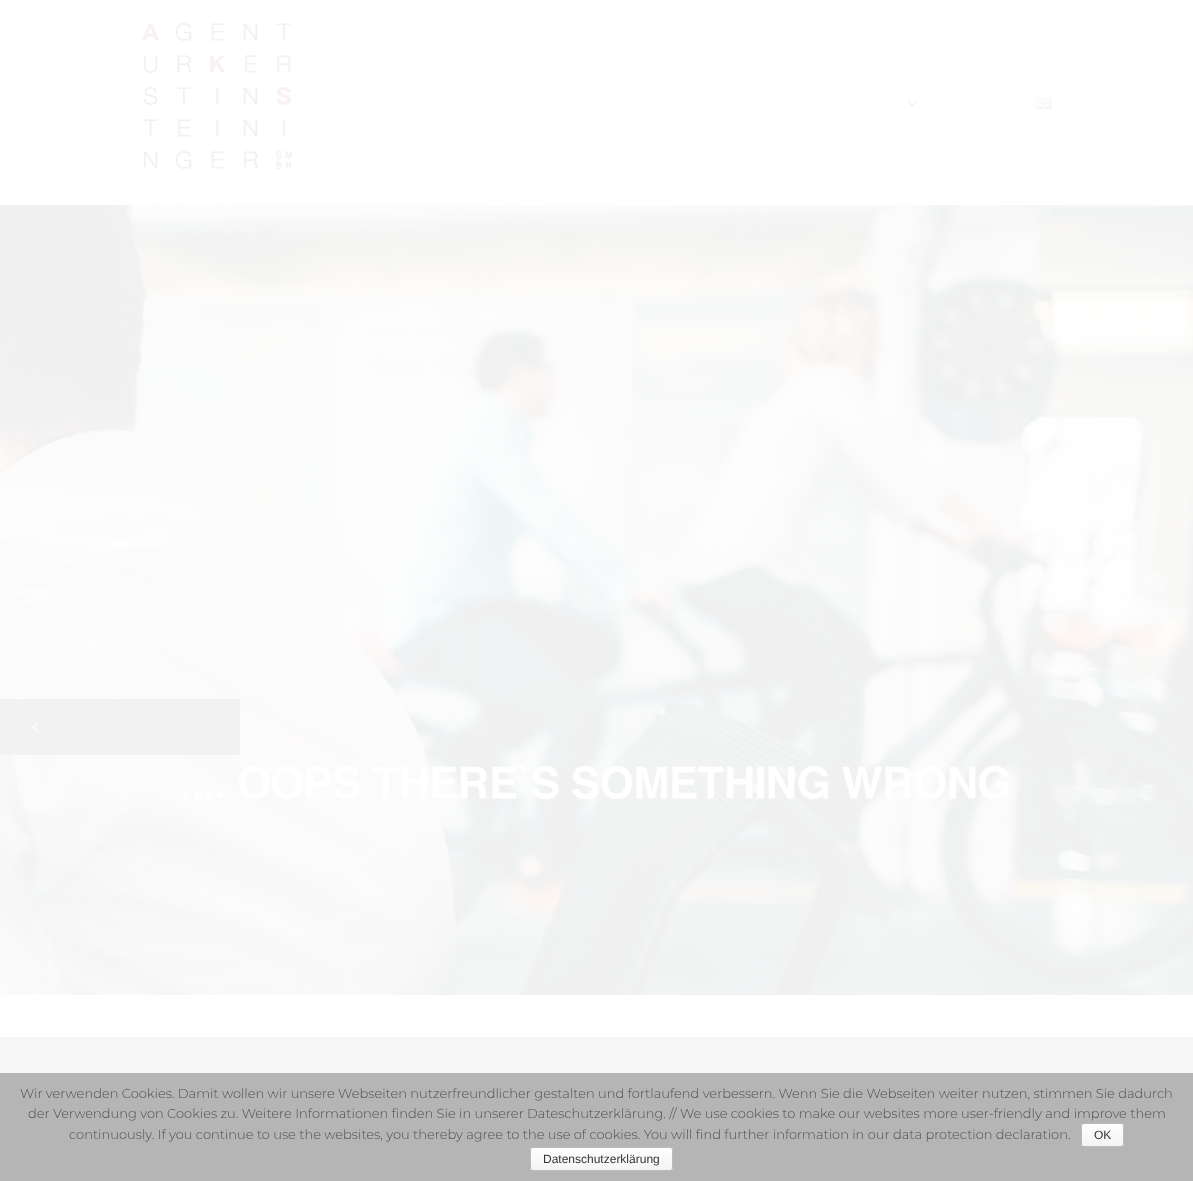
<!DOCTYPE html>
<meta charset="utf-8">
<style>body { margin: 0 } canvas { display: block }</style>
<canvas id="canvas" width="1193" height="1181"></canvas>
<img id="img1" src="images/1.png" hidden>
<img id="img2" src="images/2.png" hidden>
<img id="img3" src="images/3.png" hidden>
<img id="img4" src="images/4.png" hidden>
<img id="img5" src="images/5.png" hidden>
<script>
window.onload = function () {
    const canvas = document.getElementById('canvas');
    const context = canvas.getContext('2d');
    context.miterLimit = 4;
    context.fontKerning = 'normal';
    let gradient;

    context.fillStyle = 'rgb(255, 255, 255)';
    context.fillRect(0, 0, 1193, 1181);
    context.drawImage(document.getElementById('img1'), 142, 23, 150, 146);
    context.drawImage(document.getElementById('img2'), 907, 101, 10, 6);
    context.drawImage(document.getElementById('img3'), 1036, 98, 16, 11);
    context.drawImage(document.getElementById('img4'), 0, 205, 1193, 790);
    context.fillStyle = 'rgb(242, 242, 242)';
    context.fillRect(0, 699, 240, 56);
    context.drawImage(document.getElementById('img5'), 32, 722, 6, 11);
    context.fillStyle = 'rgb(247, 247, 247)';
    context.fillRect(0, 1037, 1193, 36);
    context.fillStyle = 'rgb(181, 181, 181)';
    context.fillRect(0, 1073, 1193, 108);
    context.save();
    context.beginPath();
    context.roundRect(1081, 1123, 43, 24, 3);
    context.clip();
    gradient = context.createLinearGradient(1103, 1124, 1103, 1146);
    gradient.addColorStop(0, 'rgb(254, 254, 254)');
    gradient.addColorStop(1, 'rgb(244, 244, 244)');
    context.fillStyle = gradient;
    context.fillRect(1081, 1124, 43, 22);
    context.restore();
    context.beginPath();
    context.roundRect(1081.5, 1123.5, 42, 23, 2.5);
    context.strokeStyle = 'rgb(187, 187, 187)';
    context.stroke();
    context.save();
    context.beginPath();
    context.roundRect(530, 1147, 143, 24, 3);
    context.clip();
    gradient = context.createLinearGradient(602, 1148, 602, 1170);
    gradient.addColorStop(0, 'rgb(254, 254, 254)');
    gradient.addColorStop(1, 'rgb(244, 244, 244)');
    context.fillStyle = gradient;
    context.fillRect(530, 1148, 143, 22);
    context.restore();
    context.beginPath();
    context.roundRect(530.5, 1147.5, 142, 23, 2.5);
    context.stroke();
    context.font = '300 13px Montserrat';
    context.fillStyle = 'rgb(79, 79, 79)';
    context.fillText('Wir verwenden Cookies. Damit wollen wir unsere Webseiten nutzerfreundlicher gestalten und fortlaufend verbessern. Wenn Sie die Webseiten weiter nutzen, stimmen Sie dadurch', 20, 1098);
    context.fillText('der Verwendung von Cookies zu. Weitere Informationen finden Sie in unserer Dateschutzerklärung. // We use cookies to make our websites more user-friendly and improve them', 28, 1118);
    context.fillText('continuously. If you continue to use the websites, you thereby agree to the use of cookies. You will find further information in our data protection declaration.', 69, 1139);
    context.font = '12px Liberation Sans';
    context.fillStyle = 'rgb(51, 51, 51)';
    context.fillText('OK', 1094, 1139);
    context.fillText('Datenschutzerklärung', 543, 1163);
};
</script>
